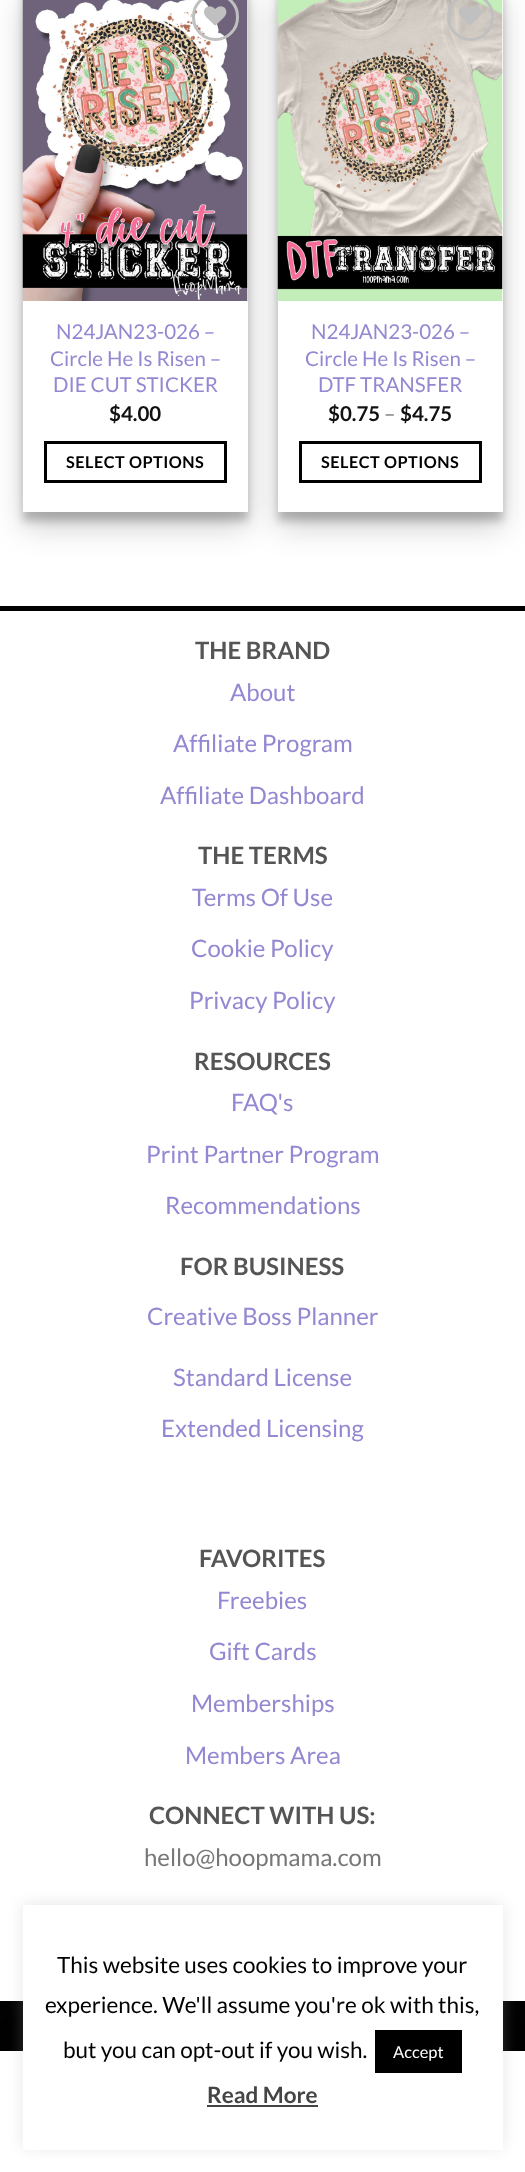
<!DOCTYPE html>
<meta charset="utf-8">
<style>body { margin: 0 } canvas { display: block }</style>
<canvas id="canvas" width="525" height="2172"></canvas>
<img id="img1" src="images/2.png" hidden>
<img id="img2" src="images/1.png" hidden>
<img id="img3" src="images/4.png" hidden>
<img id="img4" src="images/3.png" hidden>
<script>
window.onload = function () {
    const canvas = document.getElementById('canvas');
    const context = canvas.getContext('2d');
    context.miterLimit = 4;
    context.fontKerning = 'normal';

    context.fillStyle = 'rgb(255, 255, 255)';
    context.fillRect(0, 0, 525, 2172);
    context.fillStyle = 'rgba(0, 0, 0, 0.22)';
    context.filter = 'blur(4.5px)';
    context.beginPath();
    context.rect(23, -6, 225, 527);
    context.fill();
    context.filter = 'none';
    context.fillStyle = 'rgba(0, 0, 0, 0.19)';
    context.filter = 'blur(15px)';
    context.beginPath();
    context.rect(23, 0, 225, 527);
    context.fill();
    context.filter = 'none';
    context.fillStyle = 'rgb(255, 255, 255)';
    context.fillRect(23, 0, 225, 512);
    context.drawImage(document.getElementById('img1'), 22, 0, 226, 301);
    context.beginPath();
    context.roundRect(193.5, -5.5, 44, 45, 22);
    context.strokeStyle = 'rgb(192, 192, 192)';
    context.lineWidth = 3;
    context.stroke();
    context.drawImage(document.getElementById('img2'), 204, 6, 23, 20);
    context.strokeStyle = 'rgb(2, 0, 0)';
    context.strokeRect(45.5, 442.5, 180, 39);
    context.fillStyle = 'rgba(0, 0, 0, 0.22)';
    context.filter = 'blur(4.5px)';
    context.beginPath();
    context.rect(278, -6, 225, 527);
    context.fill();
    context.filter = 'none';
    context.fillStyle = 'rgba(0, 0, 0, 0.19)';
    context.filter = 'blur(15px)';
    context.beginPath();
    context.rect(278, 0, 225, 527);
    context.fill();
    context.filter = 'none';
    context.fillStyle = 'rgb(255, 255, 255)';
    context.fillRect(278, 0, 225, 512);
    context.drawImage(document.getElementById('img3'), 277, 0, 226, 301);
    context.beginPath();
    context.roundRect(448.5, -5.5, 44, 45, 22);
    context.strokeStyle = 'rgb(192, 192, 192)';
    context.stroke();
    context.drawImage(document.getElementById('img4'), 459, 6, 22, 20);
    context.strokeStyle = 'rgb(2, 0, 0)';
    context.strokeRect(300.5, 442.5, 180, 39);
    context.fillStyle = 'rgb(0, 0, 0)';
    context.fillRect(0, 606, 525, 5);
    context.fillStyle = 'rgb(2, 2, 2)';
    context.fillRect(0, 2001, 525, 50);
    context.fillStyle = 'rgba(0, 0, 0, 0.2)';
    context.filter = 'blur(22px)';
    context.beginPath();
    context.rect(18, 2057, 489, 85);
    context.fill();
    context.filter = 'none';
    context.fillStyle = 'rgb(255, 255, 255)';
    context.fillRect(0, 2051, 525, 121);
    context.fillStyle = 'rgba(172, 171, 171, 0.3)';
    context.filter = 'blur(7.5px)';
    context.beginPath();
    context.rect(23, 1904, 480, 244);
    context.fill();
    context.filter = 'none';
    context.fillStyle = 'rgb(255, 255, 255)';
    context.fillRect(23, 1905, 480, 245);
    context.fillStyle = 'rgb(0, 0, 0)';
    context.fillRect(375, 2030, 87, 43);
    context.fillStyle = 'rgb(68, 68, 68)';
    context.fillRect(207, 2105, 111, 2);
    context.font = '20.5px Lato';
    context.fillStyle = 'rgb(149, 135, 209)';
    context.fillText('N24JAN23-026 –', 56, 339);
    context.fillText('Circle He Is Risen –', 50, 366);
    context.fillText('DIE CUT STICKER', 53, 392);
    context.font = 'bold 20.5px Lato';
    context.fillStyle = 'rgb(17, 17, 17)';
    context.fillText('$4.00', 109, 421);
    context.letterSpacing = '0.5px';
    context.font = 'bold 16.25px Lato';
    context.fillStyle = 'rgb(2, 0, 0)';
    context.fillText('SELECT OPTIONS', 66, 468);
    context.letterSpacing = '0px';
    context.font = '20.5px Lato';
    context.fillStyle = 'rgb(149, 135, 209)';
    context.fillText('N24JAN23-026 –', 311, 339);
    context.fillText('Circle He Is Risen –', 305, 366);
    context.fillText('DTF TRANSFER', 318, 392);
    context.font = 'bold 20.5px Lato';
    context.fillStyle = 'rgb(17, 17, 17)';
    context.fillText('$0.75', 328, 421);
    context.font = '20.5px Lato';
    context.fillStyle = 'rgb(119, 119, 119)';
    context.fillText('–', 384, 421);
    context.font = 'bold 20.5px Lato';
    context.fillStyle = 'rgb(17, 17, 17)';
    context.fillText('$4.75', 400, 421);
    context.letterSpacing = '0.5px';
    context.font = 'bold 16.25px Lato';
    context.fillStyle = 'rgb(2, 0, 0)';
    context.fillText('SELECT OPTIONS', 321, 468);
    context.letterSpacing = '0px';
    context.font = 'bold 24px Lato';
    context.fillStyle = 'rgb(85, 85, 85)';
    context.fillText('THE BRAND', 195, 659);
    context.font = '24px Lato';
    context.fillStyle = 'rgb(149, 135, 209)';
    context.fillText('About', 230, 701);
    context.fillText('Affiliate Program', 173, 752);
    context.fillText('Affiliate Dashboard', 160, 804);
    context.font = 'bold 24px Lato';
    context.fillStyle = 'rgb(85, 85, 85)';
    context.fillText('THE TERMS', 198, 864);
    context.font = '24px Lato';
    context.fillStyle = 'rgb(149, 135, 209)';
    context.fillText('Terms Of Use', 192, 906);
    context.fillText('Cookie Policy', 191, 957);
    context.fillText('Privacy Policy', 189, 1009);
    context.font = 'bold 24px Lato';
    context.fillStyle = 'rgb(85, 85, 85)';
    context.fillText('RESOURCES', 194, 1070);
    context.font = '24px Lato';
    context.fillStyle = 'rgb(149, 135, 209)';
    context.fillText('FAQ\'s', 231, 1111);
    context.fillText('Print Partner Program', 146, 1163);
    context.fillText('Recommendations', 165, 1214);
    context.font = 'bold 24px Lato';
    context.fillStyle = 'rgb(85, 85, 85)';
    context.fillText('FOR BUSINESS', 180, 1275);
    context.font = '24px Lato';
    context.fillStyle = 'rgb(149, 135, 209)';
    context.fillText('Creative Boss Planner', 147, 1325);
    context.fillText('Standard License', 173, 1386);
    context.fillText('Extended Licensing', 161, 1437);
    context.font = 'bold 24px Lato';
    context.fillStyle = 'rgb(85, 85, 85)';
    context.fillText('FAVORITES', 199, 1567);
    context.font = '24px Lato';
    context.fillStyle = 'rgb(149, 135, 209)';
    context.fillText('Freebies', 217, 1609);
    context.fillText('Gift Cards', 209, 1660);
    context.fillText('Memberships', 191, 1712);
    context.fillText('Members Area', 185, 1764);
    context.font = 'bold 24px Lato';
    context.fillStyle = 'rgb(85, 85, 85)';
    context.fillText('CONNECT WITH US:', 149, 1824);
    context.font = '24px Lato';
    context.fillStyle = 'rgb(119, 119, 119)';
    context.fillText('hello@hoopmama.com', 144, 1866);
    context.font = '22.5px Lato';
    context.fillStyle = 'rgb(2, 0, 0)';
    context.fillText('This website uses cookies to improve your', 57, 1973);
    context.fillText('experience. We\'ll assume you\'re ok with this,', 45, 2013);
    context.fillText('but you can opt-out if you wish.', 63, 2058);
    context.font = '16.5px Lato';
    context.fillStyle = 'rgb(255, 255, 255)';
    context.fillText('Accept', 393, 2058);
    context.font = 'bold 22.5px Lato';
    context.fillStyle = 'rgb(68, 68, 68)';
    context.fillText('Read More', 207, 2103);
};
</script>
